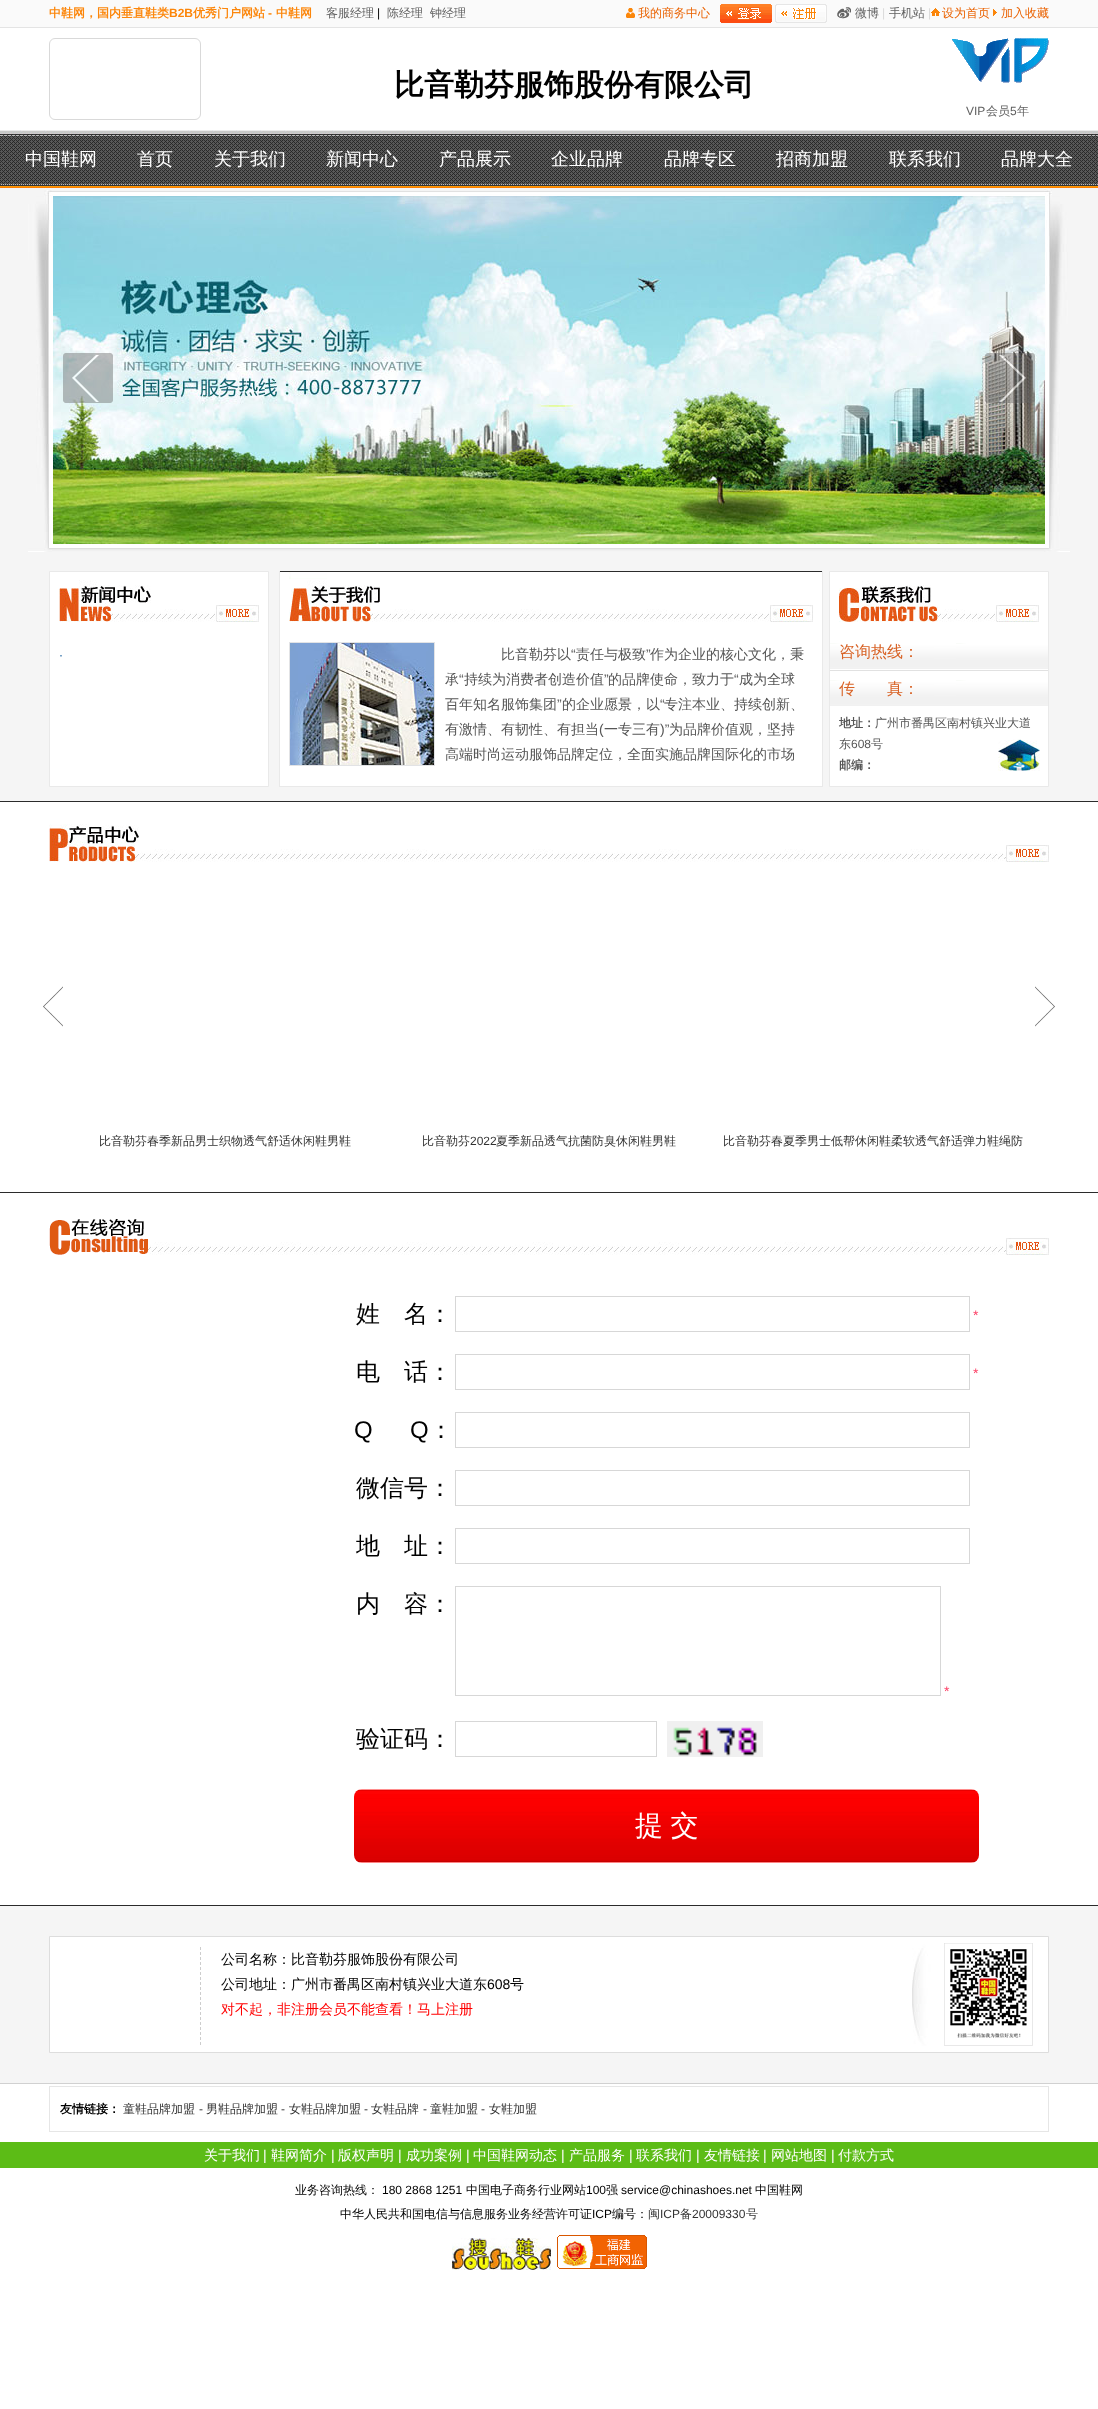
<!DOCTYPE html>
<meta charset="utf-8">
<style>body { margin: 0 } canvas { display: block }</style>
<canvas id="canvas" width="1098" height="2409"></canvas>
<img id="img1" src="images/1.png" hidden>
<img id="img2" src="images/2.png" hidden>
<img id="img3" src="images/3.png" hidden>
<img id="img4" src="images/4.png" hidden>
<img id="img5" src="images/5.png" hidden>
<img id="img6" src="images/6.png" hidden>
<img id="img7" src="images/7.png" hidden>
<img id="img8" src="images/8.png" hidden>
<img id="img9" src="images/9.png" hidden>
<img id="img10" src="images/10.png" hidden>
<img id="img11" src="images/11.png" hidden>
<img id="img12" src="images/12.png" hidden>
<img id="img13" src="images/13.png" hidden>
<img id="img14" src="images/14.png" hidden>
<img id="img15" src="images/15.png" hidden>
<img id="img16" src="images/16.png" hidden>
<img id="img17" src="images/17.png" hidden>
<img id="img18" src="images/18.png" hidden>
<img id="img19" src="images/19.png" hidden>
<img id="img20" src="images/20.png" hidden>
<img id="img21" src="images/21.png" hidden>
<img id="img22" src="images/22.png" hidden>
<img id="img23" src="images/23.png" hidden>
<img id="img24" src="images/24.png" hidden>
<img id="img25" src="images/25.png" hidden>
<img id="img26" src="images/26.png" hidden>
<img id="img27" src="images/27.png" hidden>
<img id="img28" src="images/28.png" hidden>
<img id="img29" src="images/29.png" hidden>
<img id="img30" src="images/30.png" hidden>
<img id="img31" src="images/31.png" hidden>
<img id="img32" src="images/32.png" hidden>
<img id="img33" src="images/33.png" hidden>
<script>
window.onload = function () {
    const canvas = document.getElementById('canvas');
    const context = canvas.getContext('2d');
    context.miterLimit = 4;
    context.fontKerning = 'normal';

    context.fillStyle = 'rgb(255, 255, 255)';
    context.fillRect(0, 0, 1098, 2409);
    context.fillStyle = 'rgb(250, 250, 250)';
    context.fillRect(0, 0, 1098, 27);
    context.fillStyle = 'rgb(228, 228, 228)';
    context.fillRect(0, 27, 1098, 1);
    context.drawImage(document.getElementById('img1'), 626, 8, 9, 10);
    context.drawImage(document.getElementById('img2'), 720, 4, 52, 19);
    context.drawImage(document.getElementById('img3'), 775, 4, 52, 19);
    context.drawImage(document.getElementById('img4'), 837, 7, 14, 12);
    context.drawImage(document.getElementById('img5'), 931, 8, 9, 8);
    context.drawImage(document.getElementById('img6'), 993, 9, 4, 7);
    context.beginPath();
    context.roundRect(49.5, 38.5, 151, 81, 5.5);
    context.strokeStyle = 'rgb(217, 217, 217)';
    context.stroke();
    context.drawImage(document.getElementById('img7'), 952, 38, 97, 45);
    context.drawImage(document.getElementById('img8'), 0, 130, 1098, 58);
    context.fillStyle = 'rgb(245, 245, 245)';
    context.fillRect(0, 188, 1098, 613);
    context.drawImage(document.getElementById('img9'), 28, 188, 1042, 364);
    context.drawImage(document.getElementById('img10'), 53, 196, 992, 348);
    context.drawImage(document.getElementById('img11'), 63, 353, 50, 50);
    context.drawImage(document.getElementById('img12'), 985, 353, 50, 50);
    context.fillStyle = 'rgb(43, 43, 43)';
    context.fillRect(0, 801, 1098, 1);
    context.fillStyle = 'rgb(255, 255, 255)';
    context.beginPath();
    context.rect(49.5, 571.5, 219, 215);
    context.fill();
    context.strokeStyle = 'rgb(233, 233, 233)';
    context.stroke();
    context.drawImage(document.getElementById('img13'), 111, 609, 105, 13);
    context.drawImage(document.getElementById('img14'), 59, 580, 92, 42);
    context.drawImage(document.getElementById('img15'), 216, 605, 43, 17);
    context.fillRect(280, 572, 542, 214);
    context.fillStyle = 'rgb(43, 43, 43)';
    context.fillRect(279, 571, 544, 1);
    context.fillStyle = 'rgb(233, 233, 233)';
    context.fillRect(822, 571, 1, 216);
    context.fillRect(279, 786, 544, 1);
    context.fillRect(279, 571, 1, 216);
    context.drawImage(document.getElementById('img16'), 371, 609, 399, 13);
    context.drawImage(document.getElementById('img17'), 289, 572, 91, 50);
    context.drawImage(document.getElementById('img15'), 770, 605, 43, 17);
    context.strokeStyle = 'rgb(226, 227, 229)';
    context.strokeRect(289.5, 642.5, 145, 123);
    context.drawImage(document.getElementById('img18'), 290, 643, 144, 122);
    context.fillStyle = 'rgb(255, 255, 255)';
    context.beginPath();
    context.rect(829.5, 571.5, 219, 215);
    context.fill();
    context.strokeStyle = 'rgb(233, 233, 233)';
    context.stroke();
    context.drawImage(document.getElementById('img19'), 938, 609, 58, 13);
    context.drawImage(document.getElementById('img20'), 839, 581, 99, 41);
    context.drawImage(document.getElementById('img15'), 996, 605, 43, 17);
    context.drawImage(document.getElementById('img21'), 830, 643, 218, 26);
    context.fillStyle = 'rgb(225, 225, 225)';
    context.fillRect(830, 670, 218, 1);
    context.drawImage(document.getElementById('img21'), 830, 680, 218, 26);
    context.drawImage(document.getElementById('img22'), 998, 739, 42, 32);
    context.drawImage(document.getElementById('img23'), 135, 849, 871, 13);
    context.drawImage(document.getElementById('img24'), 49, 824, 90, 38);
    context.drawImage(document.getElementById('img15'), 1006, 845, 43, 17);
    context.drawImage(document.getElementById('img25'), 43, 986, 20, 41);
    context.drawImage(document.getElementById('img26'), 1035, 986, 20, 41);
    context.fillStyle = 'rgb(43, 43, 43)';
    context.fillRect(0, 1192, 1098, 1);
    context.drawImage(document.getElementById('img27'), 148, 1242, 858, 13);
    context.drawImage(document.getElementById('img28'), 49, 1219, 99, 36);
    context.drawImage(document.getElementById('img15'), 1006, 1238, 43, 17);
    context.strokeStyle = 'rgb(215, 215, 215)';
    context.strokeRect(455.5, 1296.5, 514, 35);
    context.strokeRect(455.5, 1354.5, 514, 35);
    context.strokeRect(455.5, 1412.5, 514, 35);
    context.strokeRect(455.5, 1470.5, 514, 35);
    context.strokeRect(455.5, 1528.5, 514, 35);
    context.strokeRect(455.5, 1586.5, 485, 109);
    context.strokeRect(455.5, 1721.5, 201, 35);
    context.drawImage(document.getElementById('img29'), 667, 1721, 96, 36);
    context.drawImage(document.getElementById('img30'), 354, 1789, 625, 74);
    context.fillStyle = 'rgb(245, 245, 245)';
    context.fillRect(0, 1906, 1098, 177);
    context.fillStyle = 'rgb(43, 43, 43)';
    context.fillRect(0, 1905, 1098, 1);
    context.fillStyle = 'rgb(209, 209, 209)';
    context.fillRect(0, 2083, 1098, 1);
    context.fillStyle = 'rgb(255, 255, 255)';
    context.beginPath();
    context.rect(49.5, 1936.5, 999, 116);
    context.fill();
    context.strokeStyle = 'rgb(221, 221, 221)';
    context.stroke();
    context.beginPath();
    context.moveTo(200.5, 1947);
    context.lineTo(200.5, 2045);
    context.strokeStyle = 'rgb(205, 205, 205)';
    context.setLineDash([3, 2]);
    context.stroke();
    context.drawImage(document.getElementById('img31'), 912, 1943, 121, 103);
    context.strokeStyle = 'rgb(230, 230, 230)';
    context.setLineDash([]);
    context.strokeRect(49.5, 2086.5, 999, 45);
    context.fillStyle = 'rgb(92, 188, 22)';
    context.fillRect(0, 2142, 1098, 26);
    context.drawImage(document.getElementById('img32'), 452, 2238, 99, 32);
    context.drawImage(document.getElementById('img33'), 557, 2235, 90, 34);
    context.font = 'bold 12px WenQuanYi Zen Hei';
    context.fillStyle = 'rgb(252, 134, 10)';
    context.fillText('中鞋网，国内垂直鞋类', 49, 17);
    context.font = 'bold 12px Liberation Sans';
    context.fillText('B2B', 169, 17);
    context.font = 'bold 12px WenQuanYi Zen Hei';
    context.fillText('优秀门户网站', 193, 17);
    context.font = 'bold 12px Liberation Sans';
    context.fillText('-', 268, 17);
    context.font = 'bold 12px WenQuanYi Zen Hei';
    context.fillText('中鞋网', 276, 17);
    context.font = '500 12px WenQuanYi Zen Hei';
    context.fillStyle = 'rgb(97, 97, 97)';
    context.fillText('客服经理', 326, 17);
    context.font = '12px Liberation Sans';
    context.fillStyle = 'rgb(0, 0, 0)';
    context.fillText('|', 377, 17);
    context.font = '500 12px WenQuanYi Zen Hei';
    context.fillStyle = 'rgb(97, 97, 97)';
    context.fillText('陈经理', 387, 17);
    context.fillText('钟经理', 430, 17);
    context.fillStyle = 'rgb(234, 98, 0)';
    context.fillText('我的商务中心', 638, 17);
    context.fillStyle = 'rgb(97, 97, 97)';
    context.fillText('微博', 855, 17);
    context.font = '12px Liberation Sans';
    context.fillStyle = 'rgb(218, 218, 218)';
    context.fillText('|', 882, 17);
    context.font = '500 12px WenQuanYi Zen Hei';
    context.fillStyle = 'rgb(97, 97, 97)';
    context.fillText('手机站', 889, 17);
    context.font = '12px Liberation Sans';
    context.fillStyle = 'rgb(218, 218, 218)';
    context.fillText('|', 928, 17);
    context.font = '500 12px WenQuanYi Zen Hei';
    context.fillStyle = 'rgb(234, 98, 0)';
    context.fillText('设为首页', 942, 17);
    context.fillText('加入收藏', 1001, 17);
    context.font = 'bold 30px WenQuanYi Zen Hei';
    context.fillStyle = 'rgb(0, 0, 0)';
    context.fillText('比音勒芬服饰股份有限公司', 394, 95);
    context.font = '12px Liberation Sans';
    context.fillStyle = 'rgb(97, 97, 97)';
    context.fillText('VIP', 966, 115);
    context.font = '500 12px WenQuanYi Zen Hei';
    context.fillText('会员', 986, 115);
    context.font = '12px Liberation Sans';
    context.fillText('5', 1010, 115);
    context.font = '500 12px WenQuanYi Zen Hei';
    context.fillText('年', 1017, 115);
    context.font = '500 18px WenQuanYi Zen Hei';
    context.fillStyle = 'rgb(255, 255, 255)';
    context.fillText('中国鞋网', 25, 165);
    context.fillText('首页', 137, 165);
    context.fillText('关于我们', 214, 165);
    context.fillText('新闻中心', 326, 165);
    context.fillText('产品展示', 439, 165);
    context.fillText('企业品牌', 551, 165);
    context.fillText('品牌专区', 664, 165);
    context.fillText('招商加盟', 776, 165);
    context.fillText('联系我们', 889, 165);
    context.fillText('品牌大全', 1001, 165);
    context.font = '12px Liberation Sans';
    context.fillStyle = 'rgb(26, 97, 159)';
    context.fillText('·', 59, 659);
    context.font = '500 14px WenQuanYi Zen Hei';
    context.fillStyle = 'rgb(86, 86, 86)';
    context.fillText('比音勒芬以', 501, 659);
    context.font = '14px Liberation Sans';
    context.fillText('“', 571, 659);
    context.font = '500 14px WenQuanYi Zen Hei';
    context.fillText('责任与极致', 576, 659);
    context.font = '14px Liberation Sans';
    context.fillText('”', 646, 659);
    context.font = '500 14px WenQuanYi Zen Hei';
    context.fillText('作为企业的核心文化，秉', 650, 659);
    context.fillText('承', 445, 684);
    context.font = '14px Liberation Sans';
    context.fillText('“', 459, 684);
    context.font = '500 14px WenQuanYi Zen Hei';
    context.fillText('持续为消费者创造价值', 464, 684);
    context.font = '14px Liberation Sans';
    context.fillText('”', 604, 684);
    context.font = '500 14px WenQuanYi Zen Hei';
    context.fillText('的品牌使命，致力于', 608, 684);
    context.font = '14px Liberation Sans';
    context.fillText('“', 734, 684);
    context.font = '500 14px WenQuanYi Zen Hei';
    context.fillText('成为全球', 739, 684);
    context.fillText('百年知名服饰集团', 445, 709);
    context.font = '14px Liberation Sans';
    context.fillText('”', 557, 709);
    context.font = '500 14px WenQuanYi Zen Hei';
    context.fillText('的企业愿景，以', 562, 709);
    context.font = '14px Liberation Sans';
    context.fillText('“', 660, 709);
    context.font = '500 14px WenQuanYi Zen Hei';
    context.fillText('专注本业、持续创新、', 664, 709);
    context.fillText('有激情、有韧性、有担当', 445, 734);
    context.font = '14px Liberation Sans';
    context.fillText('(', 599, 734);
    context.font = '500 14px WenQuanYi Zen Hei';
    context.fillText('一专三有', 604, 734);
    context.font = '14px Liberation Sans';
    context.fillText(')”', 660, 734);
    context.font = '500 14px WenQuanYi Zen Hei';
    context.fillText('为品牌价值观，坚持', 669, 734);
    context.fillText('高端时尚运动服饰品牌定位，全面实施品牌国际化的市场', 445, 759);
    context.font = '500 16px WenQuanYi Zen Hei';
    context.fillStyle = 'rgb(216, 98, 37)';
    context.fillText('咨询热线：', 839, 657);
    context.fillText('传', 839, 694);
    context.fillText('真：', 887, 694);
    context.font = 'bold 12px WenQuanYi Zen Hei';
    context.fillStyle = 'rgb(86, 86, 86)';
    context.fillText('地址：', 839, 727);
    context.font = '500 12px WenQuanYi Zen Hei';
    context.fillText('广州市番禺区南村镇兴业大道', 875, 727);
    context.fillText('东', 839, 748);
    context.font = '12px Liberation Sans';
    context.fillText('608', 851, 748);
    context.font = '500 12px WenQuanYi Zen Hei';
    context.fillText('号', 871, 748);
    context.font = 'bold 12px WenQuanYi Zen Hei';
    context.fillText('邮编：', 839, 769);
    context.font = '500 12px WenQuanYi Zen Hei';
    context.fillStyle = 'rgb(50, 50, 50)';
    context.fillText('比音勒芬春季新品男士织物透气舒适休闲鞋男鞋', 99, 1145);
    context.fillText('比音勒芬', 422, 1145);
    context.font = '12px Liberation Sans';
    context.fillText('2022', 470, 1145);
    context.font = '500 12px WenQuanYi Zen Hei';
    context.fillText('夏季新品透气抗菌防臭休闲鞋男鞋', 496, 1145);
    context.fillText('比音勒芬春夏季男士低帮休闲鞋柔软透气舒适弹力鞋绳防', 723, 1145);
    context.font = '500 24px WenQuanYi Zen Hei';
    context.fillStyle = 'rgb(0, 0, 0)';
    context.fillText('姓', 356, 1322);
    context.fillText('名：', 404, 1322);
    context.font = '14px Liberation Sans';
    context.fillStyle = 'rgb(253, 55, 95)';
    context.fillText('*', 973, 1320);
    context.font = '500 24px WenQuanYi Zen Hei';
    context.fillStyle = 'rgb(0, 0, 0)';
    context.fillText('电', 356, 1380);
    context.fillText('话：', 404, 1380);
    context.font = '14px Liberation Sans';
    context.fillStyle = 'rgb(253, 55, 95)';
    context.fillText('*', 973, 1378);
    context.font = '24px Liberation Sans';
    context.fillStyle = 'rgb(0, 0, 0)';
    context.fillText('Q', 354, 1438);
    context.fillText('Q', 410, 1438);
    context.font = '500 24px WenQuanYi Zen Hei';
    context.fillText('：', 429, 1438);
    context.fillText('微信号：', 356, 1496);
    context.fillText('地', 356, 1554);
    context.fillText('址：', 404, 1554);
    context.fillText('内', 356, 1612);
    context.fillText('容：', 404, 1612);
    context.font = '14px Liberation Sans';
    context.fillStyle = 'rgb(253, 55, 95)';
    context.fillText('*', 944, 1696);
    context.font = '500 24px WenQuanYi Zen Hei';
    context.fillStyle = 'rgb(0, 0, 0)';
    context.fillText('验证码：', 356, 1747);
    context.wordSpacing = '-1px';
    context.font = '500 28px WenQuanYi Zen Hei';
    context.fillStyle = 'rgb(255, 255, 255)';
    context.fillText('提 交', 635, 1835);
    context.wordSpacing = '0px';
    context.font = '500 14px WenQuanYi Zen Hei';
    context.fillStyle = 'rgb(0, 0, 0)';
    context.fillText('公司名称：比音勒芬服饰股份有限公司', 221, 1964);
    context.fillText('公司地址：广州市番禺区南村镇兴业大道东', 221, 1989);
    context.font = '14px Liberation Sans';
    context.fillText('608', 487, 1989);
    context.font = '500 14px WenQuanYi Zen Hei';
    context.fillText('号', 510, 1989);
    context.fillStyle = 'rgb(255, 0, 0)';
    context.fillText('对不起，非注册会员不能查看！马上注册', 221, 2014);
    context.font = 'bold 12px WenQuanYi Zen Hei';
    context.fillStyle = 'rgb(0, 0, 0)';
    context.fillText('友情链接：', 60, 2113);
    context.font = '500 12px WenQuanYi Zen Hei';
    context.fillStyle = 'rgb(50, 50, 50)';
    context.fillText('童鞋品牌加盟', 123, 2113);
    context.font = '12px Liberation Sans';
    context.fillText('-', 199, 2113);
    context.font = '500 12px WenQuanYi Zen Hei';
    context.fillText('男鞋品牌加盟', 206, 2113);
    context.font = '12px Liberation Sans';
    context.fillText('-', 281, 2113);
    context.font = '500 12px WenQuanYi Zen Hei';
    context.fillText('女鞋品牌加盟', 289, 2113);
    context.font = '12px Liberation Sans';
    context.fillText('-', 364, 2113);
    context.font = '500 12px WenQuanYi Zen Hei';
    context.fillText('女鞋品牌', 371, 2113);
    context.font = '12px Liberation Sans';
    context.fillText('-', 423, 2113);
    context.font = '500 12px WenQuanYi Zen Hei';
    context.fillText('童鞋加盟', 430, 2113);
    context.font = '12px Liberation Sans';
    context.fillText('-', 481, 2113);
    context.font = '500 12px WenQuanYi Zen Hei';
    context.fillText('女鞋加盟', 489, 2113);
    context.font = '500 14px WenQuanYi Zen Hei';
    context.fillStyle = 'rgb(255, 255, 255)';
    context.fillText('关于我们', 204, 2160);
    context.font = '14px Liberation Sans';
    context.fillText('|', 263, 2160);
    context.font = '500 14px WenQuanYi Zen Hei';
    context.fillText('鞋网简介', 271, 2160);
    context.font = '14px Liberation Sans';
    context.fillText('|', 331, 2160);
    context.font = '500 14px WenQuanYi Zen Hei';
    context.fillText('版权声明', 338, 2160);
    context.font = '14px Liberation Sans';
    context.fillText('|', 398, 2160);
    context.font = '500 14px WenQuanYi Zen Hei';
    context.fillText('成功案例', 406, 2160);
    context.font = '14px Liberation Sans';
    context.fillText('|', 466, 2160);
    context.font = '500 14px WenQuanYi Zen Hei';
    context.fillText('中国鞋网动态', 473, 2160);
    context.font = '14px Liberation Sans';
    context.fillText('|', 561, 2160);
    context.font = '500 14px WenQuanYi Zen Hei';
    context.fillText('产品服务', 569, 2160);
    context.font = '14px Liberation Sans';
    context.fillText('|', 629, 2160);
    context.font = '500 14px WenQuanYi Zen Hei';
    context.fillText('联系我们', 636, 2160);
    context.font = '14px Liberation Sans';
    context.fillText('|', 696, 2160);
    context.font = '500 14px WenQuanYi Zen Hei';
    context.fillText('友情链接', 704, 2160);
    context.font = '14px Liberation Sans';
    context.fillText('|', 763, 2160);
    context.font = '500 14px WenQuanYi Zen Hei';
    context.fillText('网站地图', 771, 2160);
    context.font = '14px Liberation Sans';
    context.fillText('|', 831, 2160);
    context.font = '500 14px WenQuanYi Zen Hei';
    context.fillText('付款方式', 838, 2160);
    context.font = '500 12px WenQuanYi Zen Hei';
    context.fillStyle = 'rgb(0, 0, 0)';
    context.fillText('业务咨询热线：', 295, 2194);
    context.font = '12px Liberation Sans';
    context.fillText('180 2868 1251', 382, 2194);
    context.font = '500 12px WenQuanYi Zen Hei';
    context.fillText('中国电子商务行业网站', 466, 2194);
    context.font = '12px Liberation Sans';
    context.fillText('100', 586, 2194);
    context.font = '500 12px WenQuanYi Zen Hei';
    context.fillText('强', 606, 2194);
    context.font = '12px Liberation Sans';
    context.fillText('service@chinashoes.net', 621, 2194);
    context.font = '500 12px WenQuanYi Zen Hei';
    context.fillText('中国鞋网', 755, 2194);
    context.fillText('中华人民共和国电信与信息服务业务经营许可证', 340, 2218);
    context.font = '12px Liberation Sans';
    context.fillText('ICP', 592, 2218);
    context.font = '500 12px WenQuanYi Zen Hei';
    context.fillText('编号：', 612, 2218);
    context.fillStyle = 'rgb(50, 50, 50)';
    context.fillText('闽', 648, 2218);
    context.font = '12px Liberation Sans';
    context.fillText('ICP', 660, 2218);
    context.font = '500 12px WenQuanYi Zen Hei';
    context.fillText('备', 680, 2218);
    context.font = '12px Liberation Sans';
    context.fillText('20009330', 692, 2218);
    context.font = '500 12px WenQuanYi Zen Hei';
    context.fillText('号', 746, 2218);
};
</script>
